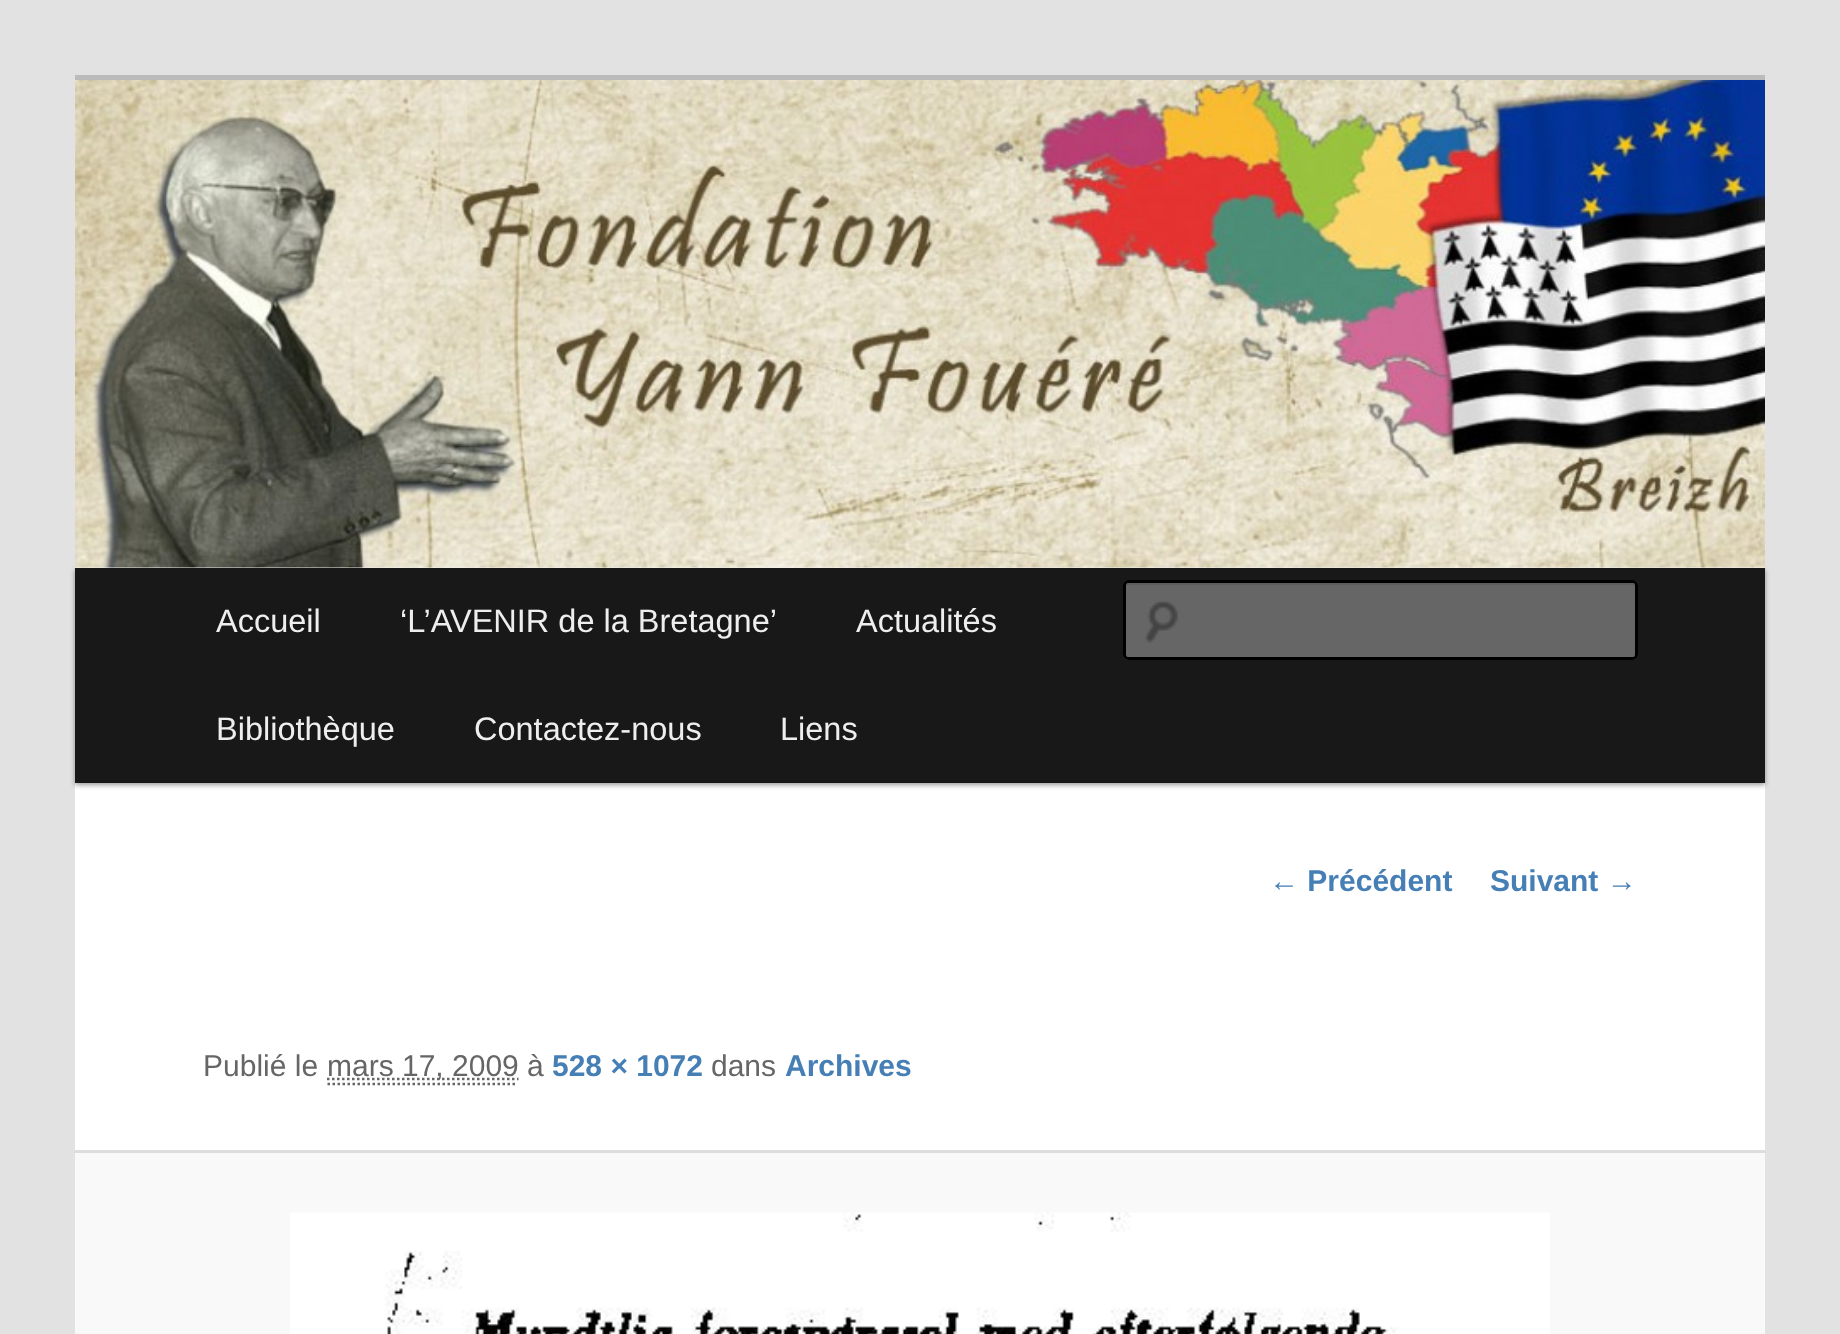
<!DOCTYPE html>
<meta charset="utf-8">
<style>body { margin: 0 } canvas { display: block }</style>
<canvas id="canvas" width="1840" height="1334"></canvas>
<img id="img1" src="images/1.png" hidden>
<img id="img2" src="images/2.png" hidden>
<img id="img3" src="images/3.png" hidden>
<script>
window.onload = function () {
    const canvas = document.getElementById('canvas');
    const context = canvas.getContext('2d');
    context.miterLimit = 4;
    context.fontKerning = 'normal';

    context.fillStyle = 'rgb(226, 226, 226)';
    context.fillRect(0, 0, 1840, 1334);
    context.fillStyle = 'rgb(255, 255, 255)';
    context.fillRect(75, 567, 1690, 583);
    context.fillStyle = 'rgb(187, 187, 187)';
    context.fillRect(75, 75, 1690, 5);
    context.fillStyle = 'rgba(0, 0, 0, 0.4)';
    context.filter = 'blur(2.5px)';
    context.beginPath();
    context.rect(75, 570, 1690, 215);
    context.fill();
    context.filter = 'none';
    context.drawImage(document.getElementById('img1'), 75, 80, 1690, 488);
    context.fillStyle = 'rgb(24, 24, 24)';
    context.fillRect(75, 568, 1690, 215);
    context.fillStyle = 'rgb(102, 102, 102)';
    context.beginPath();
    context.roundRect(1123, 580, 515, 80, 5);
    context.fill();
    context.drawImage(document.getElementById('img2'), 1145, 601, 33, 42);
    context.fillStyle = 'rgb(92, 92, 92)';
    context.beginPath();
    context.moveTo(1128, 585);
    context.lineTo(1632, 585);
    context.bezierCurveTo(1634, 585, 1635, 586, 1635, 588);
    context.bezierCurveTo(1635, 586, 1635, 583, 1632, 583);
    context.lineTo(1128, 583);
    context.lineTo(1125, 584);
    context.lineTo(1125, 588);
    context.bezierCurveTo(1125, 586, 1126, 585, 1128, 585);
    context.closePath();
    context.fill();
    context.beginPath();
    context.roundRect(1124.5, 581.5, 512, 77, 3.5);
    context.strokeStyle = 'rgb(0, 0, 0)';
    context.lineWidth = 3;
    context.stroke();
    context.beginPath();
    context.moveTo(327.5, 1084);
    context.lineTo(517.5, 1084);
    context.strokeStyle = 'rgb(102, 102, 102)';
    context.lineWidth = 2.5;
    context.setLineDash([2.5, 2.5]);
    context.stroke();
    context.beginPath();
    context.moveTo(327, 1079);
    context.lineTo(518.5, 1079);
    context.stroke();
    context.fillStyle = 'rgb(249, 249, 249)';
    context.fillRect(75, 1153, 1690, 181);
    context.fillStyle = 'rgb(221, 221, 221)';
    context.fillRect(75, 1150, 1690, 3);
    context.drawImage(document.getElementById('img3'), 290, 1212, 1260, 122);
    context.font = '32.5px Liberation Sans';
    context.fillStyle = 'rgb(238, 238, 238)';
    context.fillText('Accueil', 216, 632);
    context.fillText('‘L’AVENIR de la Bretagne’', 400, 632);
    context.fillText('Actualités', 856, 632);
    context.fillText('Bibliothèque', 216, 740);
    context.fillText('Contactez-nous', 474, 740);
    context.fillText('Liens', 780, 740);
    context.font = 'bold 30px Liberation Sans';
    context.fillStyle = 'rgb(70, 127, 181)';
    context.fillText('← Précédent', 1269, 891);
    context.fillText('Suivant →', 1490, 891);
    context.font = '30px Liberation Sans';
    context.fillStyle = 'rgb(102, 102, 102)';
    context.fillText('Publié le', 203, 1076);
    context.fillText('mars 17, 2009 à', 327, 1076);
    context.font = 'bold 30px Liberation Sans';
    context.fillStyle = 'rgb(70, 127, 181)';
    context.fillText('528 × 1072', 552, 1076);
    context.font = '30px Liberation Sans';
    context.fillStyle = 'rgb(102, 102, 102)';
    context.fillText('dans', 711, 1076);
    context.font = 'bold 30px Liberation Sans';
    context.fillStyle = 'rgb(70, 127, 181)';
    context.fillText('Archives', 785, 1076);
};
</script>
